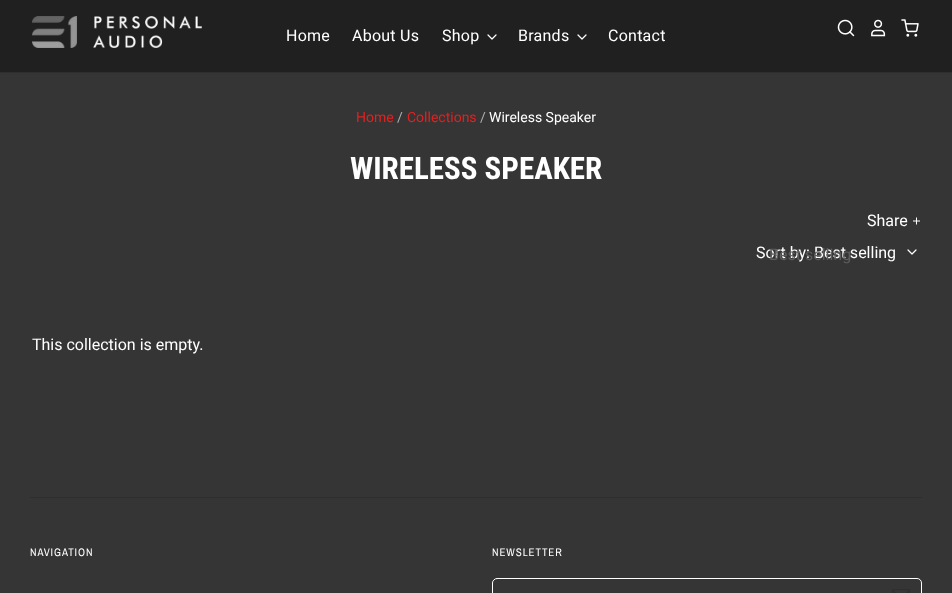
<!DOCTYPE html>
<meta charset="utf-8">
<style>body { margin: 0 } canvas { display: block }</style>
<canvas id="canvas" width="952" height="593"></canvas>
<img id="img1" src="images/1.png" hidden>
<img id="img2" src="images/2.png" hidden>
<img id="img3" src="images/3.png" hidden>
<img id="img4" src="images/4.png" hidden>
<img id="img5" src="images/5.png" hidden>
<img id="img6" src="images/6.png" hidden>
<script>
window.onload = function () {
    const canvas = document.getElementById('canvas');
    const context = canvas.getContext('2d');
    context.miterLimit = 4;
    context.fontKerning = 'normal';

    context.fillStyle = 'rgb(53, 53, 53)';
    context.fillRect(0, 0, 952, 593);
    context.fillStyle = 'rgb(32, 32, 32)';
    context.fillRect(0, 0, 952, 72);
    context.fillStyle = 'rgb(46, 46, 46)';
    context.fillRect(0, 72, 952, 1);
    context.drawImage(document.getElementById('img1'), 32, 16, 170, 32);
    context.beginPath();
    context.moveTo(488, 35);
    context.lineTo(492, 39);
    context.lineTo(496, 35);
    context.strokeStyle = 'rgb(255, 255, 255)';
    context.lineWidth = 1.2;
    context.lineCap = 'round';
    context.lineJoin = 'round';
    context.stroke();
    context.beginPath();
    context.moveTo(578, 35);
    context.lineTo(582, 39);
    context.lineTo(586, 35);
    context.stroke();
    context.drawImage(document.getElementById('img2'), 837, 19, 18, 18);
    context.drawImage(document.getElementById('img3'), 871, 19, 15, 18);
    context.drawImage(document.getElementById('img4'), 901, 19, 18, 18);
    context.drawImage(document.getElementById('img5'), 913, 217, 7, 8);
    context.beginPath();
    context.moveTo(908, 250);
    context.lineTo(912, 254);
    context.lineTo(916, 250);
    context.stroke();
    context.fillRect(30, 497, 892, 1);
    context.beginPath();
    context.roundRect(492.5, 578.5, 429, 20, 4.5);
    context.lineWidth = 1;
    context.lineJoin = 'miter';
    context.stroke();
    context.drawImage(document.getElementById('img6'), 892, 589, 18, 4);
    context.letterSpacing = '0.25px';
    context.font = '16px Roboto';
    context.fillStyle = 'rgb(255, 255, 255)';
    context.fillText('Home', 286, 41);
    context.fillText('About Us', 352, 41);
    context.fillText('Shop', 442, 41);
    context.fillText('Brands', 518, 41);
    context.fillText('Contact', 608, 41);
    context.letterSpacing = '0px';
    context.font = '14px Roboto';
    context.fillStyle = 'rgb(226, 33, 32)';
    context.fillText('Home', 356, 122);
    context.fillStyle = 'rgb(174, 174, 174)';
    context.fillText('/', 397, 122);
    context.fillStyle = 'rgb(226, 33, 32)';
    context.fillText('Collections', 407, 122);
    context.fillStyle = 'rgb(174, 174, 174)';
    context.fillText('/', 480, 122);
    context.fillStyle = 'rgb(255, 255, 255)';
    context.fillText('Wireless Speaker', 489, 122);
    context.font = 'bold 31px Roboto Condensed';
    context.fillText('WIRELESS SPEAKER', 350, 179);
    context.font = '16px Roboto';
    context.fillText('Share', 867, 226);
    context.fillText('Sort by: Best selling', 756, 258);
    context.fillStyle = 'rgb(93, 93, 93)';
    context.fillText('Best selling', 769, 260);
    context.fillStyle = 'rgb(255, 255, 255)';
    context.fillText('This collection is empty.', 32, 350);
    context.letterSpacing = '0.9px';
    context.font = '11px Archivo Narrow';
    context.fillText('NAVIGATION', 30, 556);
    context.fillText('NEWSLETTER', 492, 556);
};
</script>
